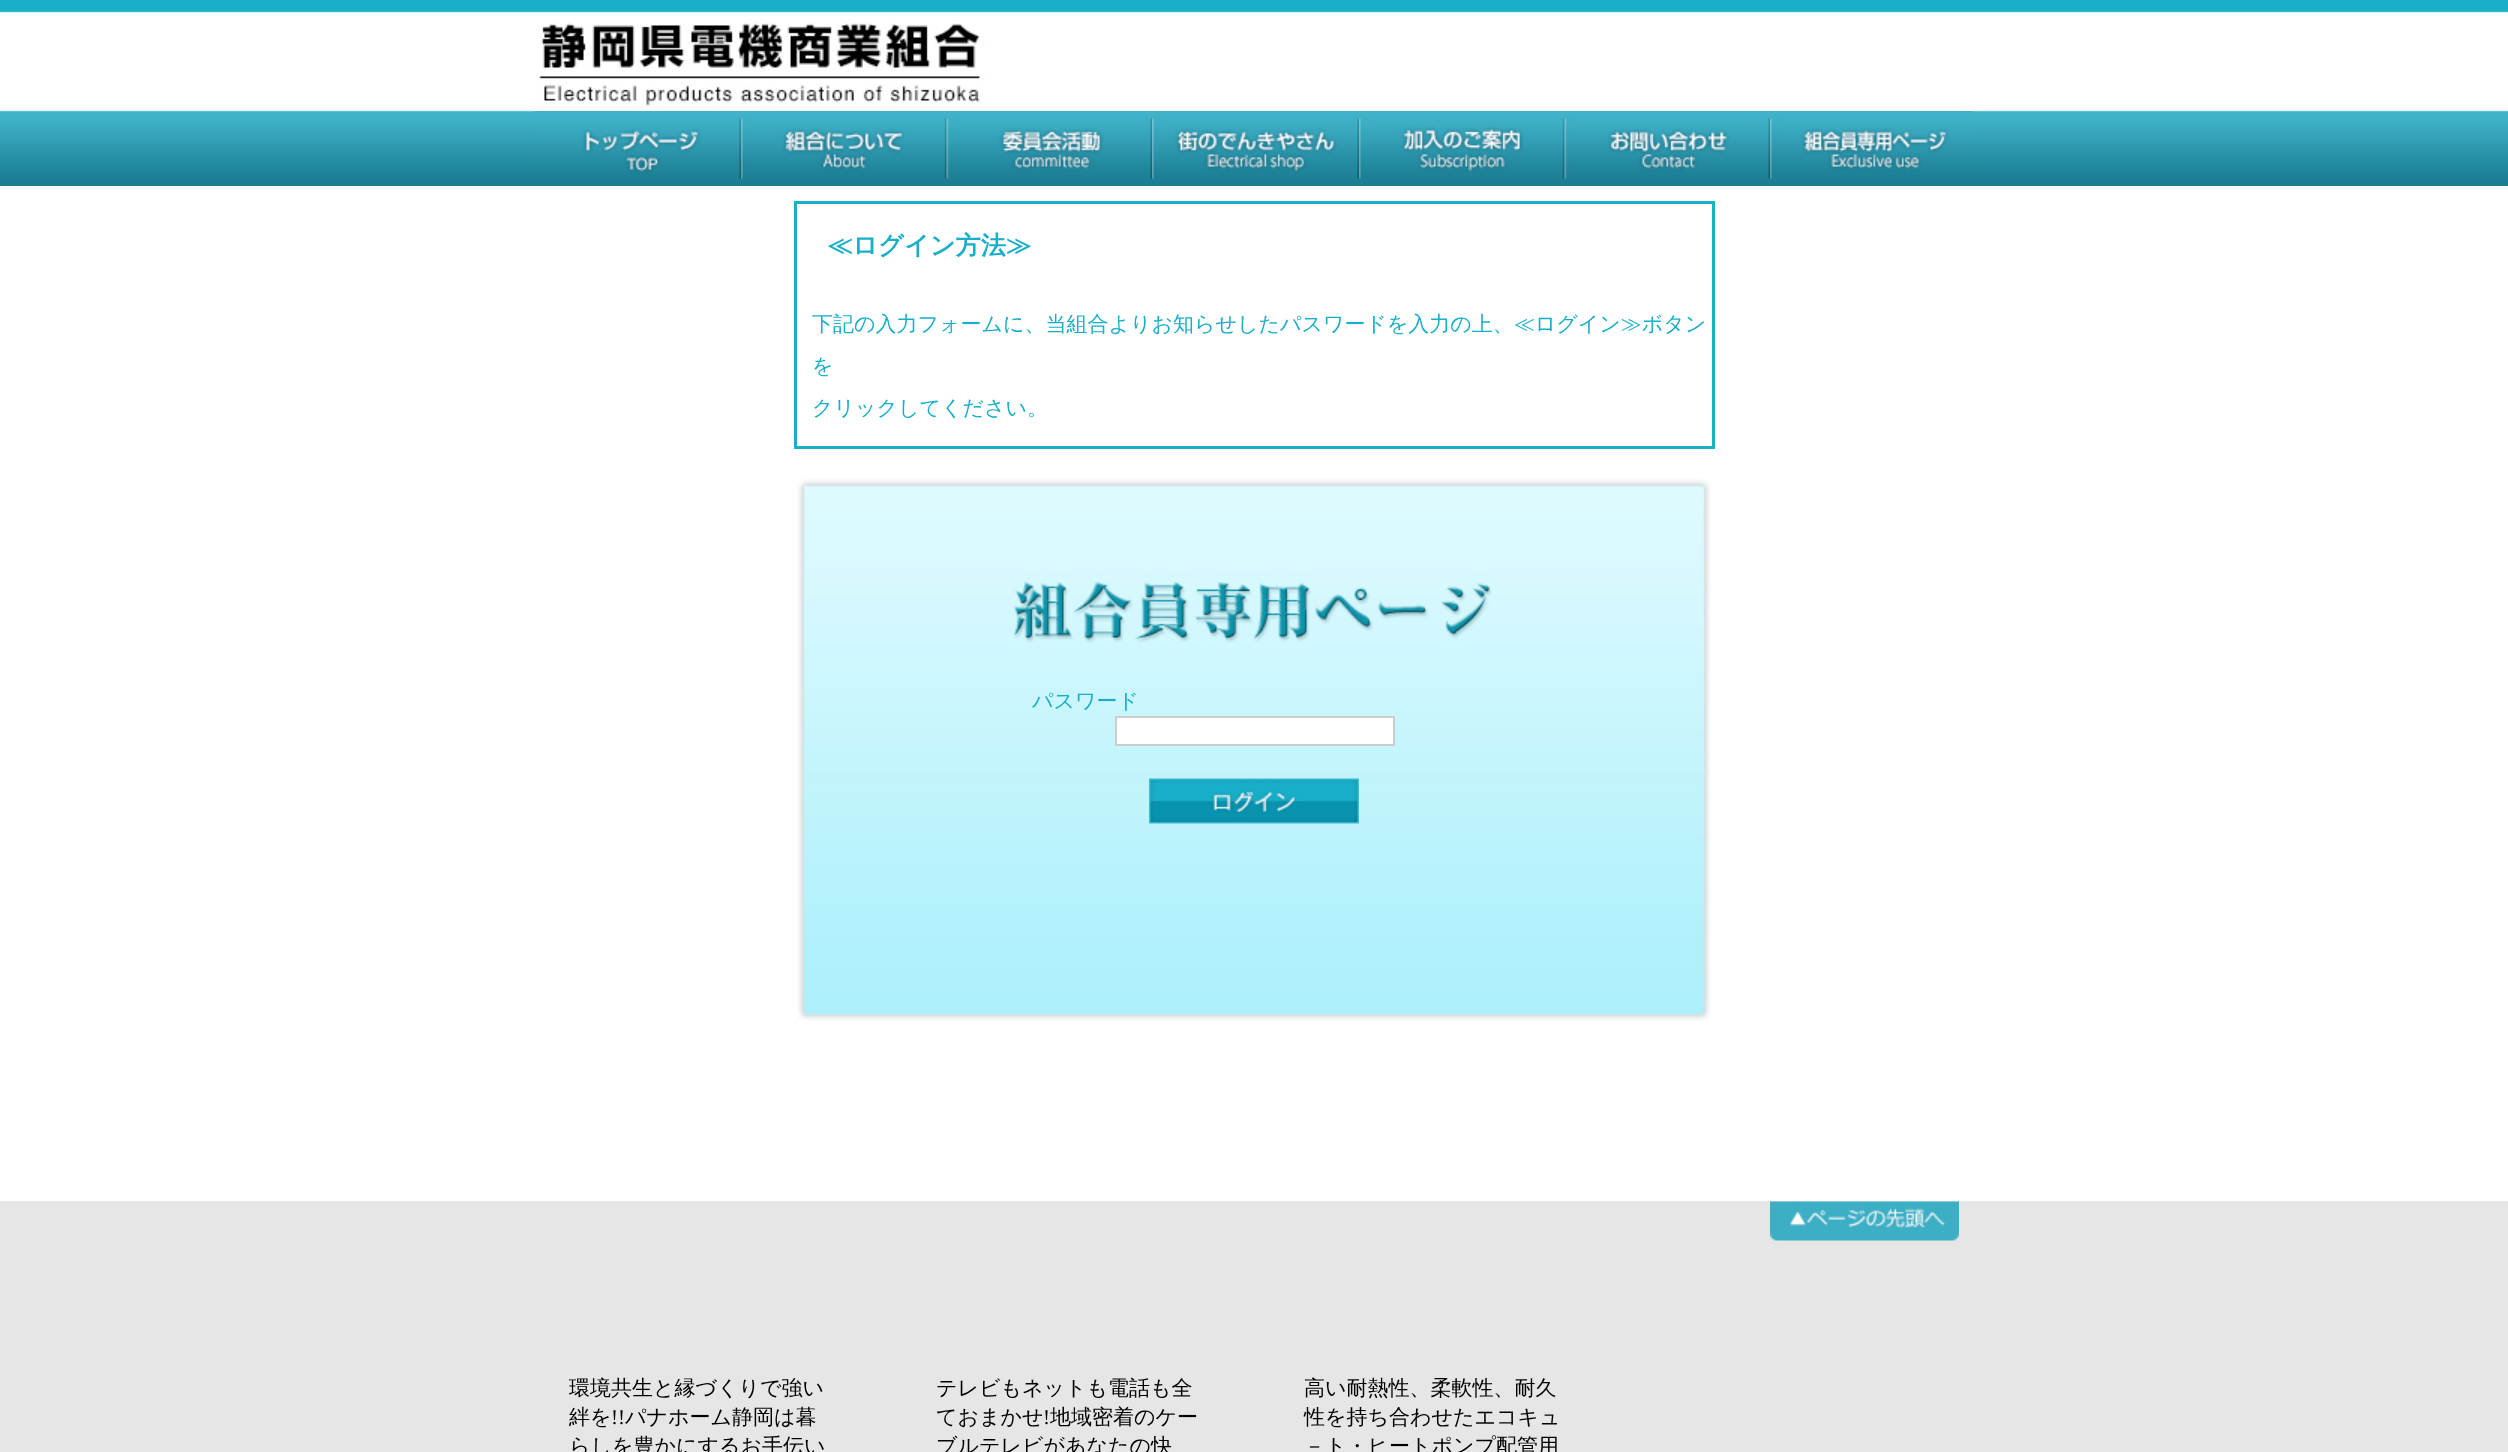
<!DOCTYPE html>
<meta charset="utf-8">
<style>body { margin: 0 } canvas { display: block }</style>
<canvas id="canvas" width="2508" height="1452"></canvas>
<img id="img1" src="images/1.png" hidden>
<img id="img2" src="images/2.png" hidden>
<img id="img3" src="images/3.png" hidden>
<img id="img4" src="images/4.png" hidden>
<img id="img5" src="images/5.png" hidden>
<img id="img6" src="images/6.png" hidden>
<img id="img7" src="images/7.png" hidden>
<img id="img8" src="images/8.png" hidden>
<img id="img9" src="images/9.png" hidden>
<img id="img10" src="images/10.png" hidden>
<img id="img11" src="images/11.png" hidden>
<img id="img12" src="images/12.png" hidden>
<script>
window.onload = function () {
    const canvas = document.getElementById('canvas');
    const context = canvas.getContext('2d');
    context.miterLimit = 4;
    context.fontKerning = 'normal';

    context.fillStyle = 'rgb(255, 255, 255)';
    context.fillRect(0, 0, 2508, 1452);
    context.drawImage(document.getElementById('img1'), 0, 0, 2508, 186);
    context.drawImage(document.getElementById('img2'), 534, 23, 1440, 88);
    context.drawImage(document.getElementById('img3'), 534, 111, 207, 68);
    context.drawImage(document.getElementById('img4'), 741, 111, 206, 69);
    context.drawImage(document.getElementById('img5'), 946, 111, 206, 69);
    context.drawImage(document.getElementById('img6'), 1152, 111, 207, 69);
    context.drawImage(document.getElementById('img7'), 1359, 111, 206, 69);
    context.drawImage(document.getElementById('img8'), 1564, 111, 206, 69);
    context.drawImage(document.getElementById('img9'), 1770, 111, 204, 69);
    context.strokeStyle = 'rgb(25, 175, 200)';
    context.lineWidth = 3;
    context.strokeRect(795.5, 202.5, 918, 245);
    context.drawImage(document.getElementById('img10'), 797, 479, 914, 542);
    context.beginPath();
    context.rect(1116, 717, 278, 28);
    context.fill();
    context.strokeStyle = 'rgb(204, 204, 204)';
    context.lineWidth = 2;
    context.stroke();
    context.drawImage(document.getElementById('img11'), 1149, 778, 210, 46);
    context.fillStyle = 'rgb(230, 230, 230)';
    context.fillRect(0, 1201, 2508, 251);
    context.drawImage(document.getElementById('img12'), 1770, 1201, 189, 40);
    context.font = 'bold 25.25px WenQuanYi Zen Hei';
    context.fillStyle = 'rgb(25, 175, 200)';
    context.fillText('≪ログイン方法≫', 827, 254);
    context.font = '500 21px WenQuanYi Zen Hei';
    context.fillText('下記の入力フォームに、当組合よりお知らせしたパスワードを入力の上、≪ログイン≫ボタン', 812, 331);
    context.fillText('を', 812, 373);
    context.fillText('クリックしてください。', 812, 415);
    context.fillText('パスワード', 1032, 708);
    context.fillStyle = 'rgb(0, 0, 0)';
    context.fillText('環境共生と縁づくりで強い', 569, 1395);
    context.fillText('絆を', 569, 1424);
    context.font = '21px Liberation Serif';
    context.fillText('!!', 611, 1424);
    context.font = '500 21px WenQuanYi Zen Hei';
    context.fillText('パナホーム静岡は暮', 625, 1424);
    context.fillText('らしを豊かにするお手伝い', 569, 1453);
    context.fillText('テレビもネットも電話も全', 936, 1395);
    context.fillText('ておまかせ', 936, 1424);
    context.font = '21px Liberation Serif';
    context.fillText('!', 1043, 1424);
    context.font = '500 21px WenQuanYi Zen Hei';
    context.fillText('地域密着のケー', 1050, 1424);
    context.fillText('ブルテレビがあなたの快', 936, 1453);
    context.fillText('高い耐熱性、柔軟性、耐久', 1304, 1395);
    context.fillText('性を持ち合わせたエコキュ', 1304, 1424);
    context.fillText('－ト・ヒートポンプ配管用', 1304, 1453);
};
</script>
